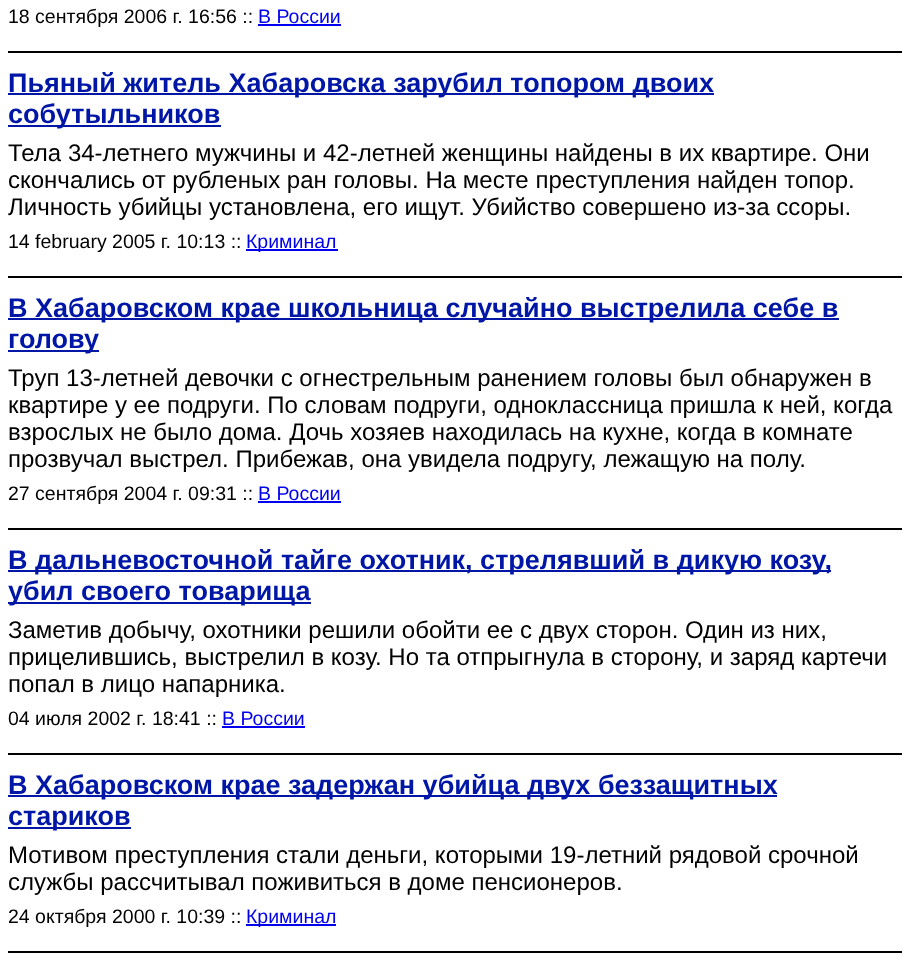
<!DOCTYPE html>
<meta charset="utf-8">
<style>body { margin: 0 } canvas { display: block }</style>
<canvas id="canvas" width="909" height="980"></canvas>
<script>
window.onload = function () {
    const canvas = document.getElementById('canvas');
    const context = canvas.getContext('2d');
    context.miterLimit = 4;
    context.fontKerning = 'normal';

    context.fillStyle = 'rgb(255, 255, 255)';
    context.fillRect(0, 0, 909, 980);
    context.fillStyle = 'rgb(0, 0, 0)';
    context.fillRect(8, 51, 894, 2);
    context.fillStyle = 'rgb(0, 0, 238)';
    context.fillRect(258, 24, 83, 2);
    context.fillStyle = 'rgb(0, 0, 0)';
    context.fillRect(8, 276, 894, 2);
    context.fillStyle = 'rgb(0, 22, 166)';
    context.fillRect(8, 93, 706, 2);
    context.fillRect(8, 125, 213, 2);
    context.fillStyle = 'rgb(0, 0, 238)';
    context.fillRect(246, 249, 92, 2);
    context.fillStyle = 'rgb(0, 0, 0)';
    context.fillRect(8, 528, 894, 2);
    context.fillStyle = 'rgb(0, 22, 166)';
    context.fillRect(8, 318, 831, 2);
    context.fillRect(8, 350, 91, 2);
    context.fillStyle = 'rgb(0, 0, 238)';
    context.fillRect(258, 501, 83, 2);
    context.fillStyle = 'rgb(0, 0, 0)';
    context.fillRect(8, 753, 894, 2);
    context.fillStyle = 'rgb(0, 22, 166)';
    context.fillRect(8, 570, 823, 2);
    context.fillRect(8, 602, 303, 2);
    context.fillStyle = 'rgb(0, 0, 238)';
    context.fillRect(222, 726, 83, 2);
    context.fillStyle = 'rgb(0, 0, 0)';
    context.fillRect(8, 951, 894, 2);
    context.fillStyle = 'rgb(0, 22, 166)';
    context.fillRect(8, 795, 769, 2);
    context.fillRect(8, 827, 123, 2);
    context.fillStyle = 'rgb(0, 0, 238)';
    context.fillRect(246, 924, 90, 2);
    context.font = '19.5px Liberation Sans';
    context.fillStyle = 'rgb(0, 0, 0)';
    context.fillText('18 сентября 2006 г. 16:56 ::', 8, 23);
    context.fillStyle = 'rgb(0, 0, 238)';
    context.fillText('В России', 258, 23);
    context.font = 'bold 27px Liberation Sans';
    context.fillStyle = 'rgb(0, 22, 166)';
    context.fillText('Пьяный житель Хабаровска зарубил топором двоих', 8, 92);
    context.fillText('собутыльников', 8, 123);
    context.font = '24px Liberation Sans';
    context.fillStyle = 'rgb(0, 0, 0)';
    context.fillText('Тела 34-летнего мужчины и 42-летней женщины найдены в их квартире. Они', 8, 161);
    context.fillText('скончались от рубленых ран головы. На месте преступления найден топор.', 8, 188);
    context.fillText('Личность убийцы установлена, его ищут. Убийство совершено из-за ссоры.', 8, 215);
    context.font = '19.5px Liberation Sans';
    context.fillText('14 february 2005 г. 10:13 ::', 8, 248);
    context.fillStyle = 'rgb(0, 0, 238)';
    context.fillText('Криминал', 246, 248);
    context.font = 'bold 27px Liberation Sans';
    context.fillStyle = 'rgb(0, 22, 166)';
    context.fillText('В Хабаровском крае школьница случайно выстрелила себе в', 8, 317);
    context.fillText('голову', 8, 348);
    context.font = '24px Liberation Sans';
    context.fillStyle = 'rgb(0, 0, 0)';
    context.fillText('Труп 13-летней девочки с огнестрельным ранением головы был обнаружен в', 8, 386);
    context.fillText('квартире у ее подруги. По словам подруги, одноклассница пришла к ней, когда', 8, 413);
    context.fillText('взрослых не было дома. Дочь хозяев находилась на кухне, когда в комнате', 8, 440);
    context.fillText('прозвучал выстрел. Прибежав, она увидела подругу, лежащую на полу.', 8, 467);
    context.font = '19.5px Liberation Sans';
    context.fillText('27 сентября 2004 г. 09:31 ::', 8, 500);
    context.fillStyle = 'rgb(0, 0, 238)';
    context.fillText('В России', 258, 500);
    context.font = 'bold 27px Liberation Sans';
    context.fillStyle = 'rgb(0, 22, 166)';
    context.fillText('В дальневосточной тайге охотник, стрелявший в дикую козу,', 8, 569);
    context.fillText('убил своего товарища', 8, 600);
    context.font = '24px Liberation Sans';
    context.fillStyle = 'rgb(0, 0, 0)';
    context.fillText('Заметив добычу, охотники решили обойти ее с двух сторон. Один из них,', 8, 638);
    context.fillText('прицелившись, выстрелил в козу. Но та отпрыгнула в сторону, и заряд картечи', 8, 665);
    context.fillText('попал в лицо напарника.', 8, 692);
    context.font = '19.5px Liberation Sans';
    context.fillText('04 июля 2002 г. 18:41 ::', 8, 725);
    context.fillStyle = 'rgb(0, 0, 238)';
    context.fillText('В России', 222, 725);
    context.font = 'bold 27px Liberation Sans';
    context.fillStyle = 'rgb(0, 22, 166)';
    context.fillText('В Хабаровском крае задержан убийца двух беззащитных', 8, 794);
    context.fillText('стариков', 8, 825);
    context.font = '24px Liberation Sans';
    context.fillStyle = 'rgb(0, 0, 0)';
    context.fillText('Мотивом преступления стали деньги, которыми 19-летний рядовой срочной', 8, 863);
    context.fillText('службы рассчитывал поживиться в доме пенсионеров.', 8, 890);
    context.font = '19.5px Liberation Sans';
    context.fillText('24 октября 2000 г. 10:39 ::', 8, 923);
    context.fillStyle = 'rgb(0, 0, 238)';
    context.fillText('Криминал', 246, 923);
};
</script>
